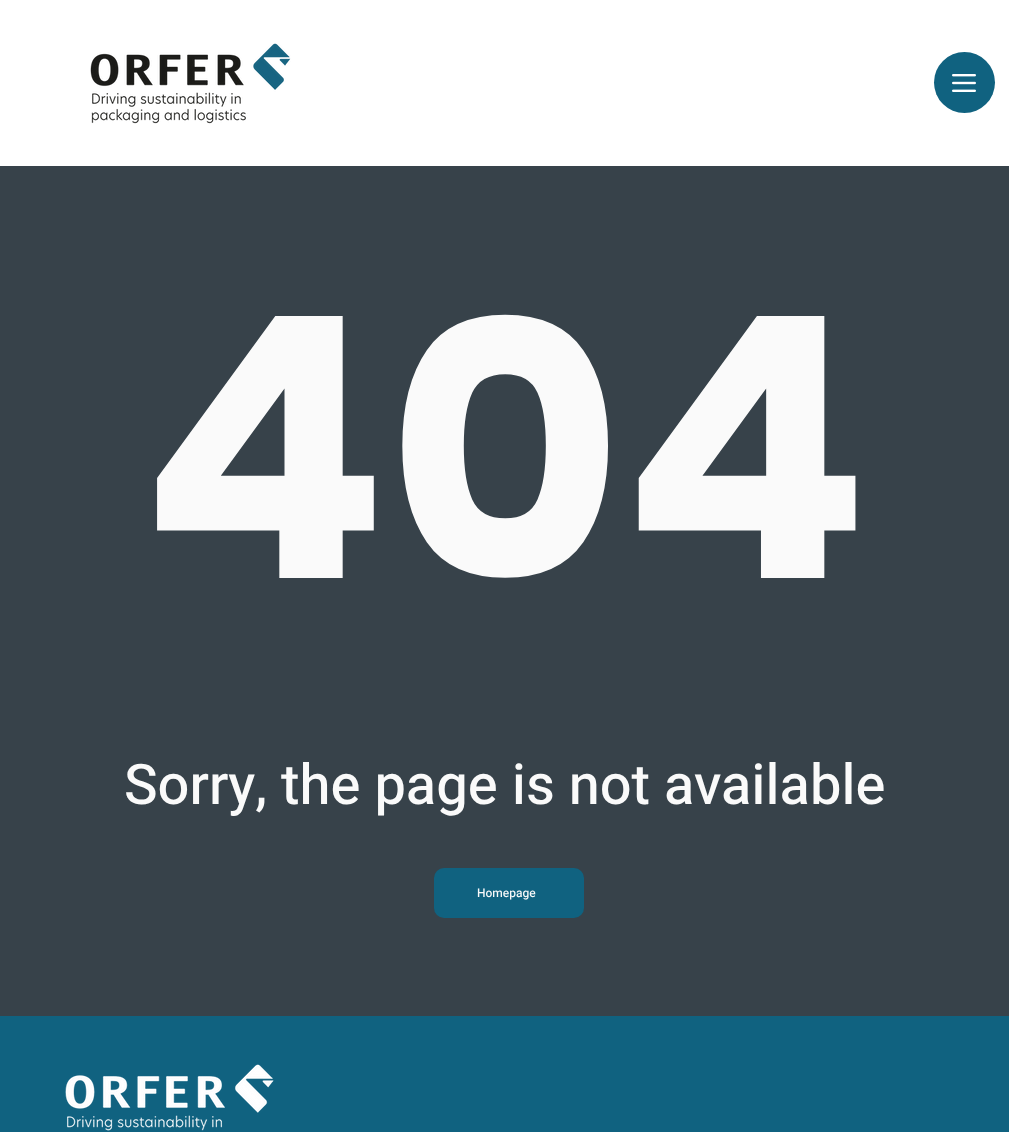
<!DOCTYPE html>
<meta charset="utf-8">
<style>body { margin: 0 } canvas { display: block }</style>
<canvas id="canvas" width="1009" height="1132"></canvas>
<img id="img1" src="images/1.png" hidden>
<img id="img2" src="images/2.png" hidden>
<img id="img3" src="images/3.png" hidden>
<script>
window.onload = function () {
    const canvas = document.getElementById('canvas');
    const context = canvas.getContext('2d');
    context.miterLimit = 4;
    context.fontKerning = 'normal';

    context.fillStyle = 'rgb(255, 255, 255)';
    context.fillRect(0, 0, 1009, 1132);
    context.drawImage(document.getElementById('img1'), 90, 43, 201, 81);
    context.fillStyle = 'rgb(16, 98, 128)';
    context.beginPath();
    context.arc(964.5, 82.5, 30.5, 0, 2 * Math.PI);
    context.fill();
    context.drawImage(document.getElementById('img2'), 952, 74, 24, 18);
    context.fillStyle = 'rgb(55, 66, 74)';
    context.fillRect(0, 166, 1009, 850);
    context.fillStyle = 'rgb(16, 98, 128)';
    context.beginPath();
    context.roundRect(434, 868, 150, 50, 10);
    context.fill();
    context.fillRect(0, 1016, 1009, 116);
    context.drawImage(document.getElementById('img3'), 65, 1064, 209, 67);
    context.font = 'bold 366px Poppins';
    context.fillStyle = 'rgb(250, 250, 250)';
    context.fillText('404', 141, 578);
    context.font = '500 56px Heebo';
    context.fillText('Sorry, the page is not available', 124, 804);
    context.font = '500 12px Heebo';
    context.fillText('Homepage', 477, 897);
};
</script>
